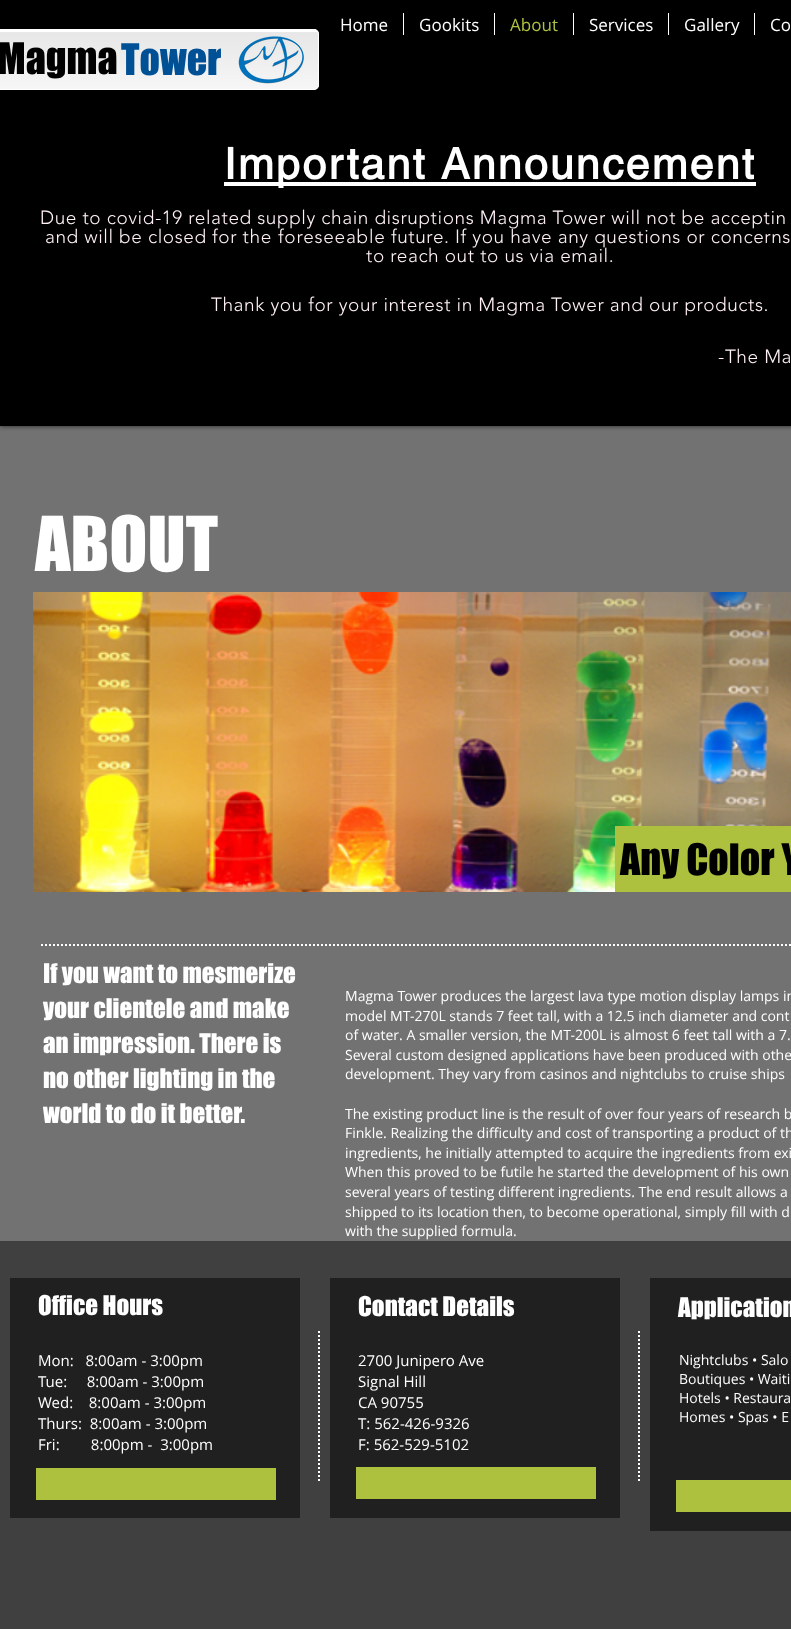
<!DOCTYPE html>
<meta charset="utf-8">
<style>body { margin: 0 } canvas { display: block }</style>
<canvas id="canvas" width="791" height="1629"></canvas>
<img id="img1" src="images/1.png" hidden>
<img id="img2" src="images/2.png" hidden>
<img id="img3" src="images/3.png" hidden>
<script>
window.onload = function () {
    const canvas = document.getElementById('canvas');
    const context = canvas.getContext('2d');
    context.miterLimit = 4;
    context.fontKerning = 'normal';

    context.fillStyle = 'rgb(114, 114, 114)';
    context.fillRect(0, 0, 791, 1629);
    context.fillStyle = 'rgba(0, 0, 0, 0.7)';
    context.filter = 'blur(2.5px)';
    context.beginPath();
    context.rect(0, 0, 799, 426);
    context.fill();
    context.filter = 'none';
    context.fillStyle = 'rgb(0, 0, 0)';
    context.fillRect(0, 0, 791, 426);
    context.fillStyle = 'rgb(255, 255, 255)';
    context.fillRect(403, 13, 1, 22);
    context.fillRect(494, 13, 1, 22);
    context.fillRect(573, 13, 1, 22);
    context.fillRect(668, 13, 1, 22);
    context.fillRect(754, 13, 1, 22);
    context.beginPath();
    context.roundRect(-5, 29, 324, 61, 5);
    context.fill();
    context.drawImage(document.getElementById('img1'), 0, 32, 319, 58);
    context.beginPath();
    context.roundRect(-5.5, 29.5, 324, 60, 4.5);
    context.strokeStyle = 'rgb(255, 255, 255)';
    context.stroke();
    context.drawImage(document.getElementById('img2'), 238, 36, 66, 48);
    context.fillRect(224, 182, 532, 4);
    context.drawImage(document.getElementById('img3'), 33, 592, 758, 300);
    context.fillStyle = 'rgb(174, 193, 63)';
    context.fillRect(615, 826, 176, 66);
    context.beginPath();
    context.moveTo(41, 945);
    context.lineTo(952, 945);
    context.lineWidth = 2;
    context.setLineDash([2, 2]);
    context.stroke();
    context.fillStyle = 'rgb(64, 64, 64)';
    context.fillRect(0, 1241, 791, 388);
    context.fillStyle = 'rgb(32, 32, 32)';
    context.fillRect(10, 1278, 290, 240);
    context.fillStyle = 'rgb(174, 193, 63)';
    context.fillRect(36, 1468, 240, 32);
    context.beginPath();
    context.moveTo(319, 1331);
    context.lineTo(319, 1481);
    context.stroke();
    context.fillStyle = 'rgb(32, 32, 32)';
    context.fillRect(330, 1278, 290, 240);
    context.fillStyle = 'rgb(174, 193, 63)';
    context.fillRect(356, 1467, 240, 32);
    context.beginPath();
    context.moveTo(639, 1331);
    context.lineTo(639, 1481);
    context.stroke();
    context.fillStyle = 'rgb(32, 32, 32)';
    context.fillRect(650, 1278, 141, 253);
    context.fillStyle = 'rgb(174, 193, 63)';
    context.fillRect(676, 1480, 115, 32);
    context.font = '17px Open Sans';
    context.fillStyle = 'rgb(255, 255, 255)';
    context.fillText('Home', 340, 31);
    context.fillText('Gookits', 419, 31);
    context.fillStyle = 'rgb(174, 193, 63)';
    context.fillText('About', 510, 31);
    context.fillStyle = 'rgb(255, 255, 255)';
    context.fillText('Services', 589, 31);
    context.fillText('Gallery', 684, 31);
    context.fillText('Co', 770, 31);
    context.font = '40px "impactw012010"';
    context.fillStyle = 'rgb(0, 0, 0)';
    context.fillText('Magma', -3, 74);
    context.fillStyle = 'rgb(0, 80, 149)';
    context.fillText('Tower', 121, 75);
    context.letterSpacing = '2.15px';
    context.font = 'bold 43px helvetica';
    context.fillStyle = 'rgb(255, 255, 255)';
    context.fillText('Important Announcement', 224, 179);
    context.letterSpacing = '0.57px';
    context.font = '300 19px "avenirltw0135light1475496"';
    context.fillStyle = 'rgb(255, 241, 247)';
    context.fillText('Due to covid-19 related supply chain disruptions Magma Tower will not be acceptin', 40, 224);
    context.fillText('and will be closed for the', 45, 243);
    context.letterSpacing = '0.75px';
    context.fillText('foreseeable', 278, 243);
    context.letterSpacing = '0.57px';
    context.fillText('future. If you have any questions or concerns', 391, 243);
    context.fillText('to reach out to us via email.', 366, 262);
    context.fillText('Thank you for your interest in Magma Tower and our products.', 211, 311);
    context.fillText('-The Ma', 718, 363);
    context.letterSpacing = '0px';
    context.font = '70px "impactw012010"';
    context.fillStyle = 'rgb(255, 255, 255)';
    context.fillText('ABOUT', 35, 571);
    context.font = '40px "impactw012010"';
    context.fillStyle = 'rgb(0, 0, 0)';
    context.fillText('Any Color Y', 620, 875);
    context.font = '25px "impactw012010"';
    context.fillStyle = 'rgb(255, 255, 255)';
    context.fillText('If you want to mesmerize', 43, 983);
    context.fillText('your clientele and make', 43, 1018);
    context.fillText('an impression. There is', 43, 1053);
    context.fillText('no other lighting in the', 43, 1088);
    context.fillText('world to do it better.', 43, 1123);
    context.font = '14px Open Sans';
    context.fillText('Magma Tower produces the largest lava type motion display lamps in', 345, 1001);
    context.fillText('model MT-270L stands 7 feet tall, with a 12.5 inch diameter and cont', 345, 1021);
    context.fillText('of water. A smaller version, the MT-200L is almost 6 feet tall with a 7.', 345, 1040);
    context.fillText('Several custom designed applications have been produced with othe', 345, 1060);
    context.fillText('development. They vary from casinos and nightclubs to cruise ships', 345, 1079);
    context.fillText('The existing product line is the result of over four years of research b', 345, 1119);
    context.fillText('Finkle. Realizing the difficulty and cost of transporting a product of th', 345, 1138);
    context.fillText('ingredients, he initially attempted to acquire the ingredients from exi', 345, 1158);
    context.fillText('When this proved to be futile he started the development of his own', 345, 1177);
    context.fillText('several years of testing different ingredients. The end result allows a', 345, 1197);
    context.fillText('shipped to its location then, to become operational, simply fill with d', 345, 1217);
    context.fillText('with the supplied formula.', 345, 1236);
    context.font = '25px "impactw012010"';
    context.fillText('Office Hours', 38, 1315);
    context.font = '15px Open Sans';
    context.fillText('Mon:   8:00am - 3:00pm', 38, 1366);
    context.fillText('Tue:     8:00am - 3:00pm', 38, 1387);
    context.fillText('Wed:    8:00am - 3:00pm', 38, 1408);
    context.fillText('Thurs:  8:00am - 3:00pm', 38, 1429);
    context.fillText('Fri:        8:00pm -  3:00pm', 38, 1450);
    context.font = '25px "impactw012010"';
    context.fillText('Contact Details', 358, 1316);
    context.font = '15px Open Sans';
    context.fillText('2700 Junipero Ave', 358, 1366);
    context.fillText('Signal Hill', 358, 1387);
    context.fillText('CA 90755', 358, 1408);
    context.fillText('T: 562-426-9326', 358, 1429);
    context.fillText('F: 562-529-5102', 358, 1450);
    context.font = '25px "impactw012010"';
    context.fillText('Application', 678, 1317);
    context.font = '14px Open Sans';
    context.fillText('Nightclubs • Salo', 679, 1365);
    context.fillText('Boutiques • Waiti', 679, 1384);
    context.fillText('Hotels • Restaura', 679, 1403);
    context.fillText('Homes • Spas • E', 679, 1422);
};
</script>
